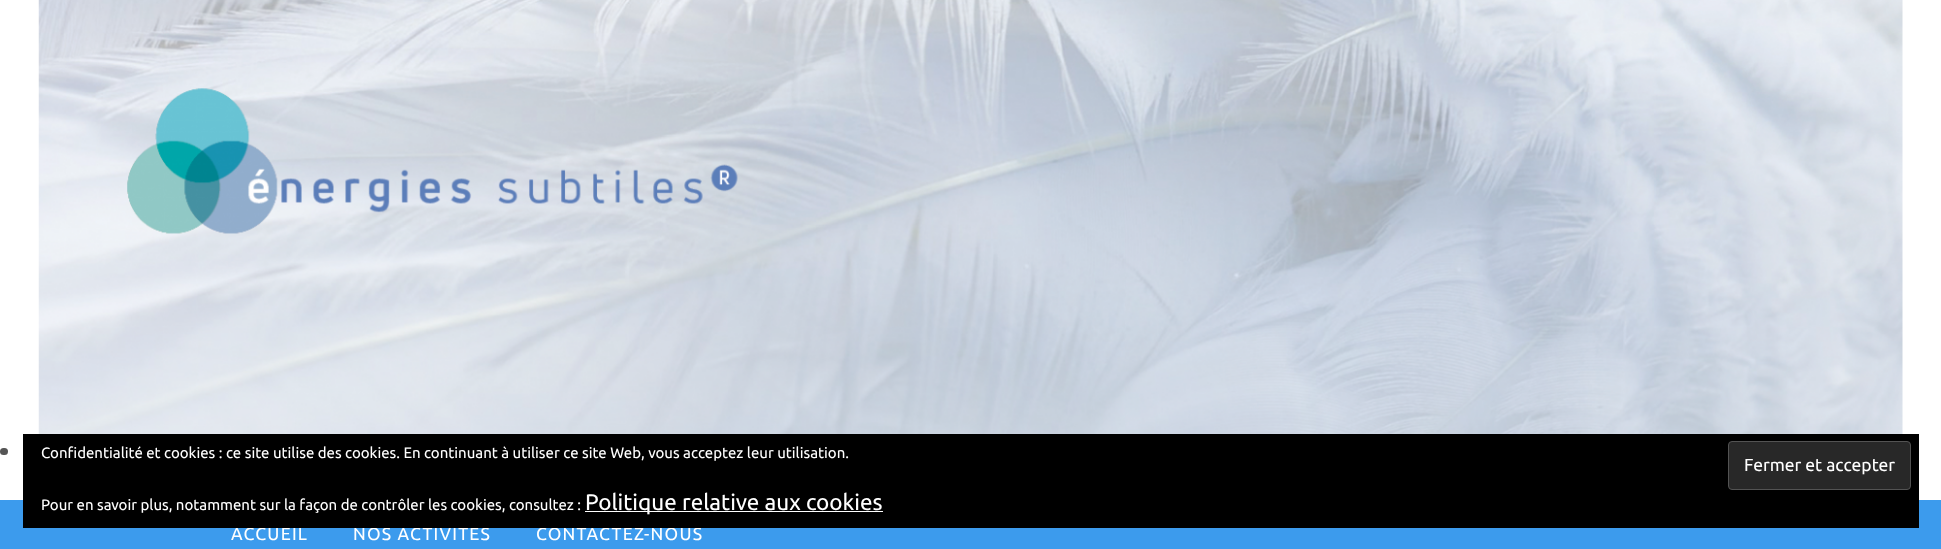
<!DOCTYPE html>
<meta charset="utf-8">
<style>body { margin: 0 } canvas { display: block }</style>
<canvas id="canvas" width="1941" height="549"></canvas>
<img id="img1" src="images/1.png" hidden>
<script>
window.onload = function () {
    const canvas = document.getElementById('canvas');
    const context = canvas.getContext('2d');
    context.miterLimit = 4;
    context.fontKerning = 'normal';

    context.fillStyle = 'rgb(255, 255, 255)';
    context.fillRect(0, 0, 1941, 549);
    context.fillStyle = 'rgb(85, 85, 85)';
    context.beginPath();
    context.roundRect(0, 448, 8, 7, 3.5);
    context.fill();
    context.drawImage(document.getElementById('img1'), 38, 0, 1865, 434);
    context.fillStyle = 'rgb(60, 155, 237)';
    context.fillRect(0, 500, 1941, 49);
    context.letterSpacing = '1.25px';
    context.font = '17.5px Ubuntu';
    context.fillStyle = 'rgb(255, 255, 255)';
    context.fillText('ACCUEIL', 231, 540);
    context.fillText('NOS ACTIVITÉS', 353, 540);
    context.fillText('CONTACTEZ-NOUS', 536, 540);
    context.fillStyle = 'rgb(0, 0, 0)';
    context.fillRect(23, 434, 1896, 94);
    context.fillStyle = 'rgb(40, 40, 40)';
    context.beginPath();
    context.roundRect(1728.5, 441.5, 182, 48, 3.5);
    context.fill();
    context.strokeStyle = 'rgb(83, 83, 83)';
    context.stroke();
    context.letterSpacing = '0px';
    context.fillStyle = 'rgb(255, 255, 255)';
    context.fillText('Fermer et accepter', 1744, 471);
    context.fillRect(585, 511, 298, 1);
    context.font = '22.5px Ubuntu';
    context.fillText('Politique relative aux cookies', 585, 510);
    context.font = '15px Ubuntu';
    context.fillText('Pour en savoir plus, notamment sur la façon de contrôler les cookies, consultez :', 41, 510);
    context.fillText('Confidentialité et cookies : ce site utilise des cookies. En continuant à utiliser ce site Web, vous acceptez leur utilisation.', 41, 458);
};
</script>
